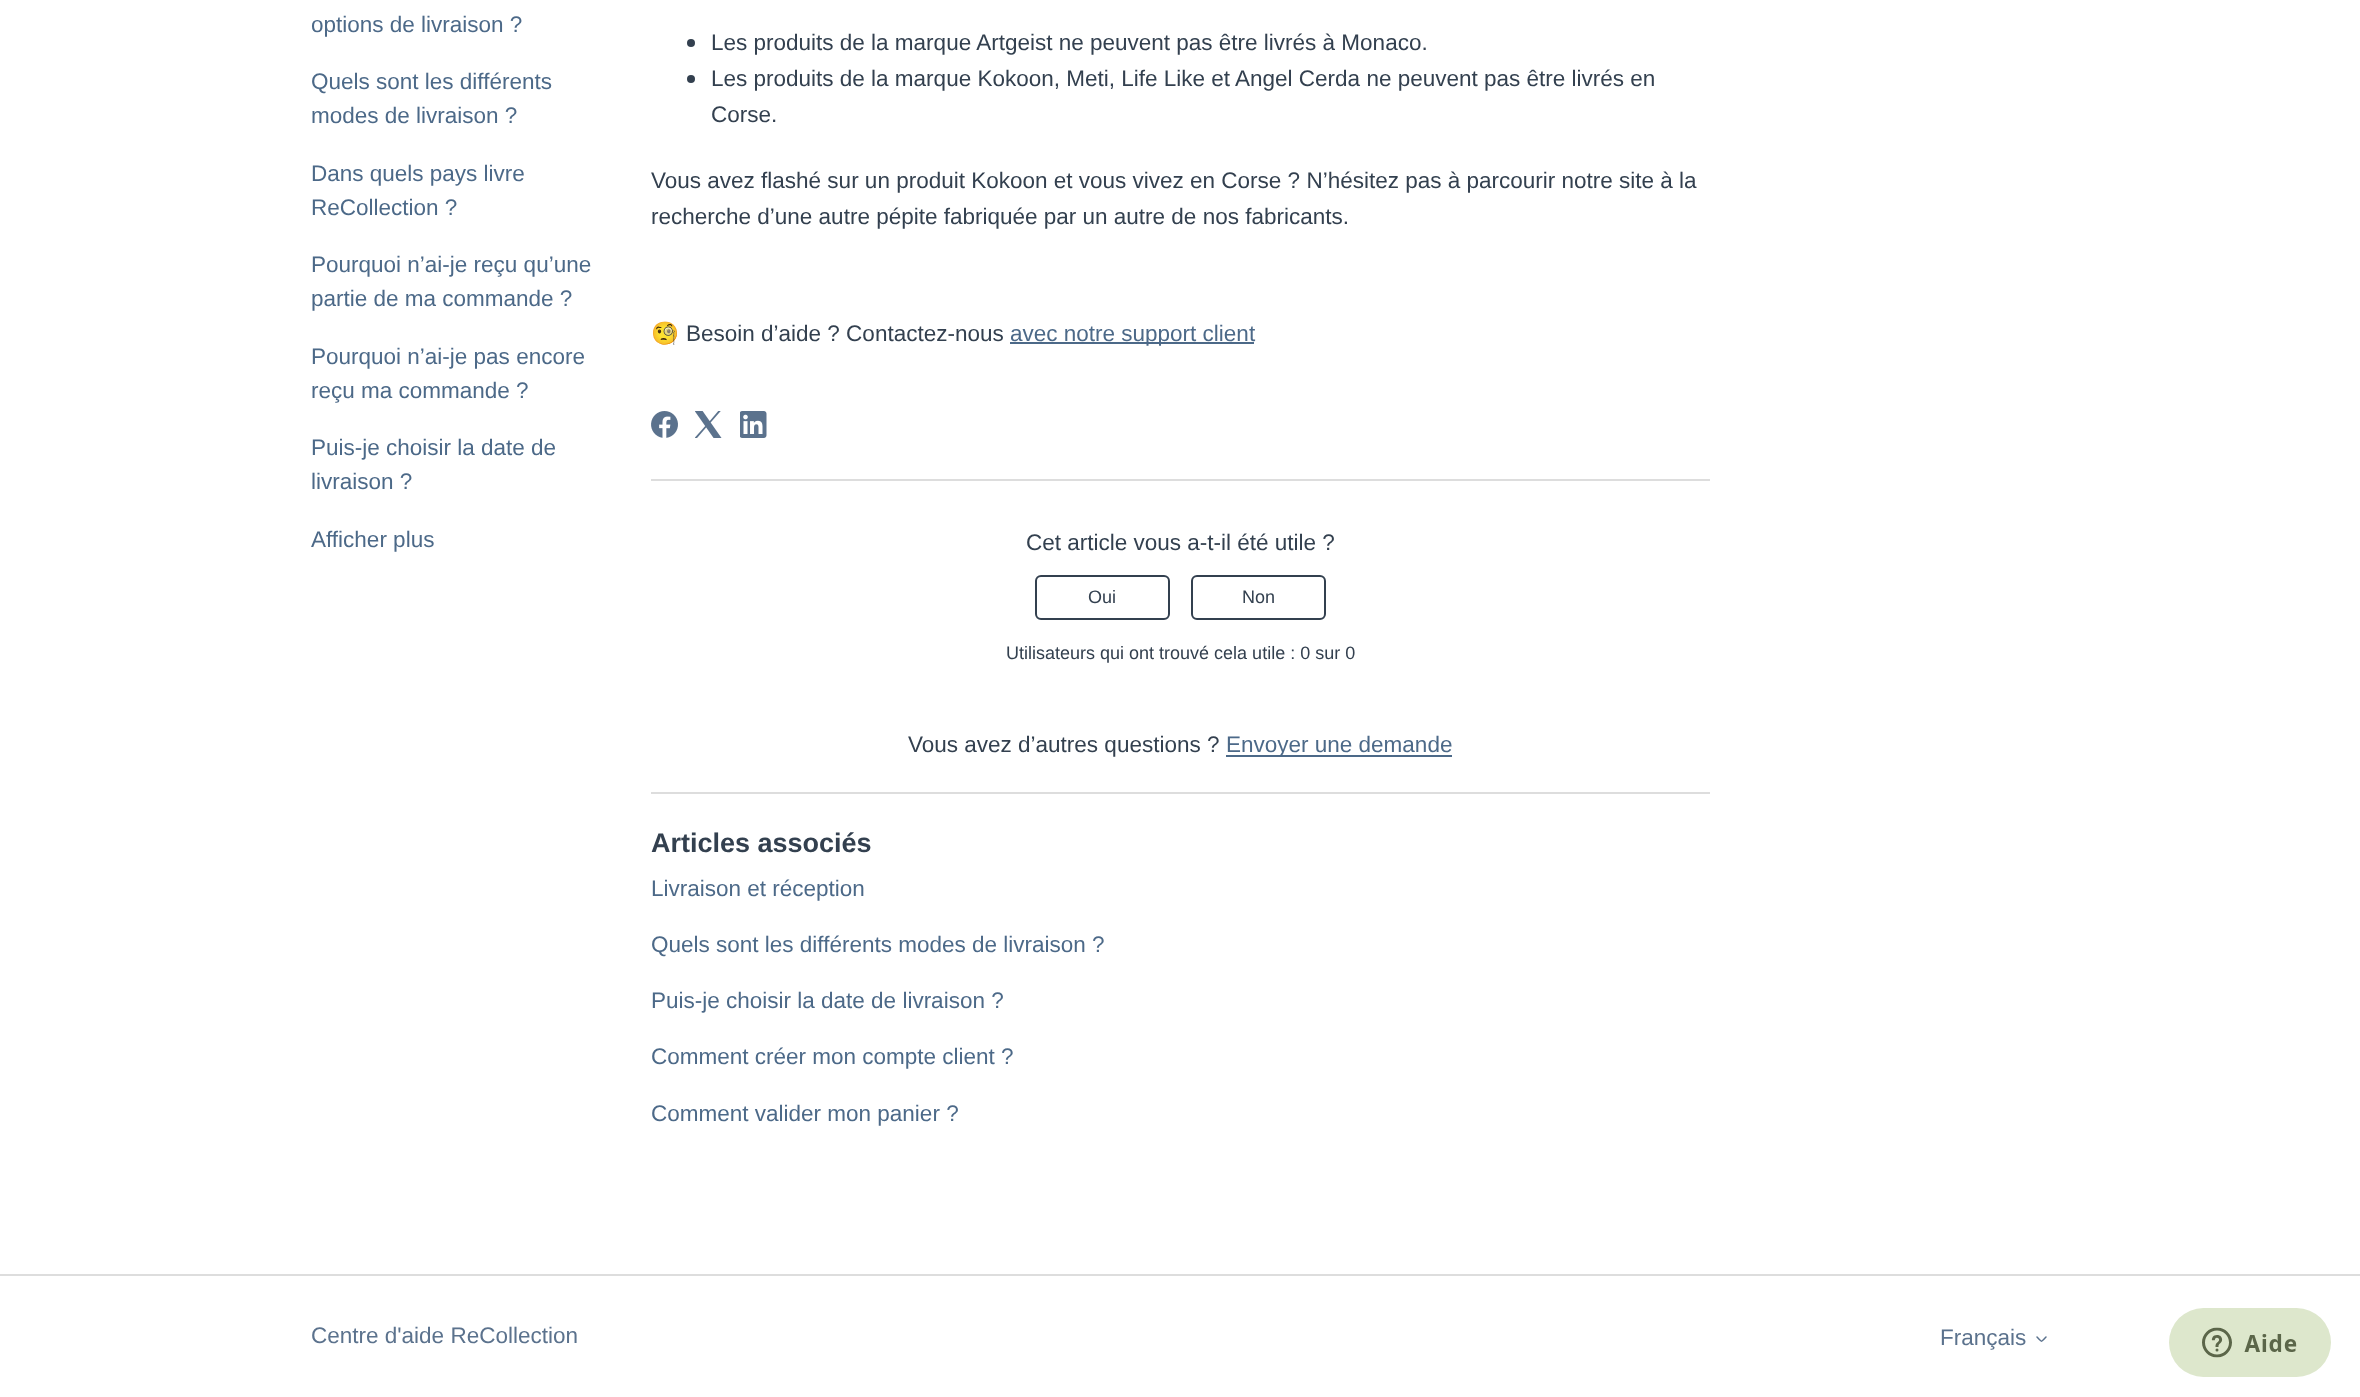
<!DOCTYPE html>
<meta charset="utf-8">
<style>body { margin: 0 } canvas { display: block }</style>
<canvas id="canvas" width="2360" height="1397"></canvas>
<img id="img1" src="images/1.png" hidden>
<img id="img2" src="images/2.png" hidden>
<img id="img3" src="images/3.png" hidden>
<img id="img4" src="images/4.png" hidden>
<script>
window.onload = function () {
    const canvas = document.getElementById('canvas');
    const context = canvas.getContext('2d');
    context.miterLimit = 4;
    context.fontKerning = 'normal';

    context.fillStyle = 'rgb(255, 255, 255)';
    context.fillRect(0, 0, 2360, 1397);
    context.fillStyle = 'rgb(51, 64, 79)';
    context.beginPath();
    context.arc(691, 43, 4, 0, 2 * Math.PI);
    context.fill();
    context.beginPath();
    context.arc(691, 79, 4, 0, 2 * Math.PI);
    context.fill();
    context.fillStyle = 'rgb(76, 105, 136)';
    context.fillRect(1010, 342, 244, 2);
    context.drawImage(document.getElementById('img1'), 651, 411, 27, 27);
    context.drawImage(document.getElementById('img2'), 695, 411, 27, 27);
    context.drawImage(document.getElementById('img3'), 740, 411, 27, 27);
    context.fillStyle = 'rgb(221, 221, 221)';
    context.fillRect(651, 479, 1059, 2);
    context.beginPath();
    context.roundRect(1036, 576, 133, 43, 5);
    context.strokeStyle = 'rgb(51, 64, 79)';
    context.lineWidth = 2;
    context.stroke();
    context.beginPath();
    context.roundRect(1192, 576, 133, 43, 5);
    context.stroke();
    context.fillStyle = 'rgb(76, 105, 136)';
    context.fillRect(1226, 755, 226, 2);
    context.fillStyle = 'rgb(221, 221, 221)';
    context.fillRect(651, 792, 1059, 2);
    context.fillRect(0, 1274, 2360, 2);
    context.beginPath();
    context.moveTo(2037, 1337);
    context.bezierCurveTo(2042.5, 1342.5, 2040.5, 1342.5, 2046, 1337);
    context.strokeStyle = 'rgb(91, 114, 141)';
    context.lineWidth = 1.5;
    context.lineCap = 'round';
    context.stroke();
    context.drawImage(document.getElementById('img4'), 2169, 1308, 162, 69);
    context.font = '22.5px Liberation Sans';
    context.fillStyle = 'rgb(76, 105, 136)';
    context.fillText('options de livraison ?', 311, 32);
    context.fillText('Quels sont les différents', 311, 89);
    context.fillText('modes de livraison ?', 311, 123);
    context.fillText('Dans quels pays livre', 311, 181);
    context.fillText('ReCollection ?', 311, 215);
    context.fillText('Pourquoi n’ai-je reçu qu’une', 311, 272);
    context.fillText('partie de ma commande ?', 311, 306);
    context.fillText('Pourquoi n’ai-je pas encore', 311, 364);
    context.fillText('reçu ma commande ?', 311, 398);
    context.fillText('Puis-je choisir la date de', 311, 455);
    context.fillText('livraison ?', 311, 489);
    context.fillText('Afficher plus', 311, 547);
    context.fillStyle = 'rgb(51, 64, 79)';
    context.fillText('Les produits de la marque Artgeist ne peuvent pas être livrés à Monaco.', 711, 50);
    context.fillText('Les produits de la marque Kokoon, Meti, Life Like et Angel Cerda ne peuvent pas être livrés en', 711, 86);
    context.fillText('Corse.', 711, 122);
    context.fillText('Vous avez flashé sur un produit Kokoon et vous vivez en Corse ? N’hésitez pas à parcourir notre site à la', 651, 188);
    context.fillText('recherche d’une autre pépite fabriquée par un autre de nos fabricants.', 651, 224);
    context.font = '22.5px Noto Color Emoji';
    context.fillText('🧐', 651, 341);
    context.font = '22.5px Liberation Sans';
    context.fillText('Besoin d’aide ? Contactez-nous', 686, 341);
    context.fillStyle = 'rgb(76, 105, 136)';
    context.fillText('avec notre support client', 1010, 341);
    context.fillStyle = 'rgb(51, 64, 79)';
    context.fillText('Cet article vous a-t-il été utile ?', 1026, 550);
    context.font = '18px Liberation Sans';
    context.fillText('Oui', 1088, 603);
    context.fillText('Non', 1242, 603);
    context.fillText('Utilisateurs qui ont trouvé cela utile : 0 sur 0', 1006, 659);
    context.font = '22.5px Liberation Sans';
    context.fillText('Vous avez d’autres questions ?', 908, 752);
    context.fillStyle = 'rgb(76, 105, 136)';
    context.fillText('Envoyer une demande', 1226, 752);
    context.font = 'bold 27px Liberation Sans';
    context.fillStyle = 'rgb(51, 64, 79)';
    context.fillText('Articles associés', 651, 852);
    context.font = '22.5px Liberation Sans';
    context.fillStyle = 'rgb(76, 105, 136)';
    context.fillText('Livraison et réception', 651, 896);
    context.fillText('Quels sont les différents modes de livraison ?', 651, 952);
    context.fillText('Puis-je choisir la date de livraison ?', 651, 1008);
    context.fillText('Comment créer mon compte client ?', 651, 1064);
    context.fillText('Comment valider mon panier ?', 651, 1121);
    context.fillStyle = 'rgb(91, 114, 141)';
    context.fillText('Centre d\'aide ReCollection', 311, 1343);
    context.fillText('Français', 1940, 1345);
};
</script>
